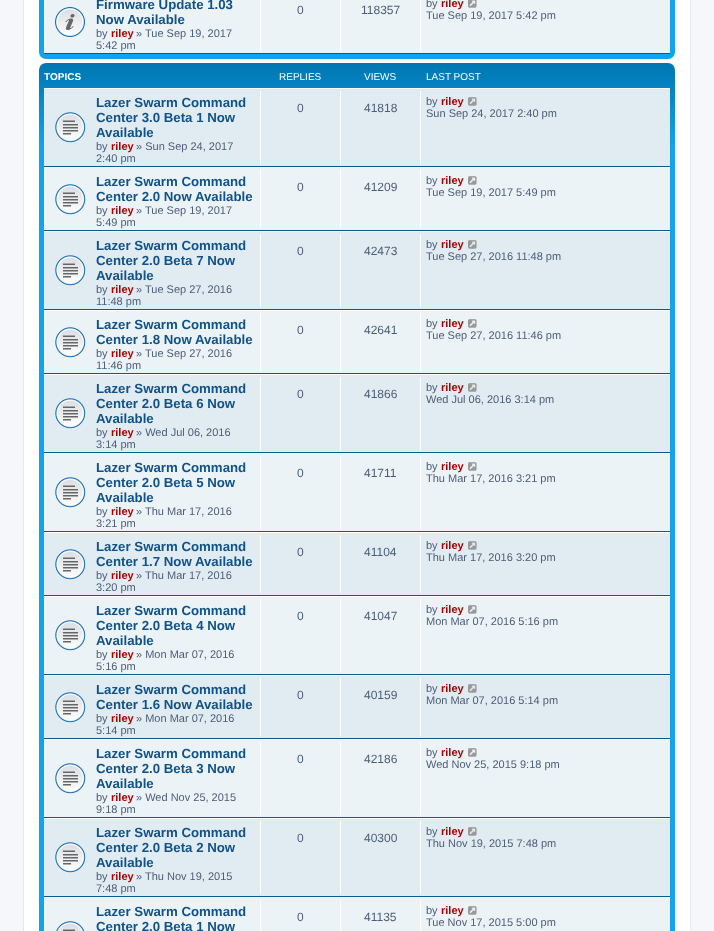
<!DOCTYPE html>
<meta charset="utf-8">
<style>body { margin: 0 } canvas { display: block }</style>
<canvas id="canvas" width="714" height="931"></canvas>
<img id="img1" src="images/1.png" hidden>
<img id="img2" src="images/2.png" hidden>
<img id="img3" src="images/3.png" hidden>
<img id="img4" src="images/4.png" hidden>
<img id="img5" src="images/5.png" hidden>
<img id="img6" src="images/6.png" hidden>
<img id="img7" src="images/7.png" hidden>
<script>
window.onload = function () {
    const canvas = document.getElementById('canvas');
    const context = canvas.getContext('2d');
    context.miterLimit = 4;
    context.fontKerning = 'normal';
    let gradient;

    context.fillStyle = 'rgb(245, 247, 250)';
    context.fillRect(0, 0, 714, 931);
    context.fillStyle = 'rgb(255, 255, 255)';
    context.beginPath();
    context.rect(23.5, -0.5, 667, 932);
    context.fill();
    context.strokeStyle = 'rgb(230, 233, 237)';
    context.stroke();
    gradient = context.createLinearGradient(357, -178, 357, 59);
    gradient.addColorStop(0, 'rgb(106, 206, 255)');
    gradient.addColorStop(0.01, 'rgb(0, 118, 177)');
    gradient.addColorStop(0.39, 'rgb(18, 163, 235)');
    gradient.addColorStop(1, 'rgb(18, 163, 235)');
    context.fillStyle = gradient;
    context.beginPath();
    context.roundRect(39, -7, 636, 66, 7);
    context.fill();
    context.fillStyle = 'rgb(236, 243, 247)';
    context.fillRect(44, 0, 626, 53);
    context.fillStyle = 'rgb(0, 96, 143)';
    context.fillRect(44, 53, 626, 1);
    context.drawImage(document.getElementById('img1'), 55, 7, 30, 30);
    context.fillStyle = 'rgb(255, 255, 255)';
    context.fillRect(260, 0, 1, 51);
    context.fillRect(340, 0, 1, 51);
    context.fillRect(420, 0, 1, 51);
    context.drawImage(document.getElementById('img2'), 468, 0, 9, 8);
    gradient = context.createLinearGradient(357, 63, 357, 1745);
    gradient.addColorStop(0, 'rgb(106, 206, 255)');
    gradient.addColorStop(0, 'rgb(0, 118, 177)');
    gradient.addColorStop(0.05, 'rgb(18, 163, 235)');
    gradient.addColorStop(1, 'rgb(18, 163, 235)');
    context.fillStyle = gradient;
    context.beginPath();
    context.roundRect(39, 63, 636, 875, 7);
    context.fill();
    context.fillStyle = 'rgb(225, 235, 242)';
    context.fillRect(44, 89, 626, 77);
    context.fillStyle = 'rgb(255, 255, 255)';
    context.fillRect(44, 88, 626, 1);
    context.fillStyle = 'rgb(0, 96, 143)';
    context.fillRect(44, 166, 626, 1);
    context.drawImage(document.getElementById('img3'), 55, 112, 31, 31);
    context.fillStyle = 'rgb(255, 255, 255)';
    context.fillRect(260, 91, 1, 73);
    context.fillRect(340, 91, 1, 73);
    context.fillRect(420, 91, 1, 73);
    context.drawImage(document.getElementById('img4'), 468, 97, 9, 9);
    context.fillStyle = 'rgb(236, 243, 247)';
    context.fillRect(44, 168, 626, 62);
    context.fillStyle = 'rgb(255, 255, 255)';
    context.fillRect(44, 167, 626, 1);
    context.fillStyle = 'rgb(0, 96, 143)';
    context.fillRect(44, 230, 626, 1);
    context.drawImage(document.getElementById('img5'), 55, 184, 31, 31);
    context.fillStyle = 'rgb(255, 255, 255)';
    context.fillRect(260, 170, 1, 58);
    context.fillRect(340, 170, 1, 58);
    context.fillRect(420, 170, 1, 58);
    context.drawImage(document.getElementById('img6'), 468, 176, 9, 9);
    context.fillStyle = 'rgb(225, 235, 242)';
    context.fillRect(44, 232, 626, 77);
    context.fillStyle = 'rgb(255, 255, 255)';
    context.fillRect(44, 231, 626, 1);
    context.fillStyle = 'rgb(0, 96, 143)';
    context.fillRect(44, 309, 626, 1);
    context.drawImage(document.getElementById('img3'), 55, 255, 31, 31);
    context.fillStyle = 'rgb(255, 255, 255)';
    context.fillRect(260, 234, 1, 73);
    context.fillRect(340, 234, 1, 73);
    context.fillRect(420, 234, 1, 73);
    context.drawImage(document.getElementById('img4'), 468, 240, 9, 9);
    context.fillStyle = 'rgb(236, 243, 247)';
    context.fillRect(44, 311, 626, 62);
    context.fillStyle = 'rgb(255, 255, 255)';
    context.fillRect(44, 310, 626, 1);
    context.fillStyle = 'rgb(0, 96, 143)';
    context.fillRect(44, 373, 626, 1);
    context.drawImage(document.getElementById('img5'), 55, 327, 31, 31);
    context.fillStyle = 'rgb(255, 255, 255)';
    context.fillRect(260, 313, 1, 58);
    context.fillRect(340, 313, 1, 58);
    context.fillRect(420, 313, 1, 58);
    context.drawImage(document.getElementById('img6'), 468, 319, 9, 9);
    context.fillStyle = 'rgb(225, 235, 242)';
    context.fillRect(44, 375, 626, 77);
    context.fillStyle = 'rgb(255, 255, 255)';
    context.fillRect(44, 374, 626, 1);
    context.fillStyle = 'rgb(0, 96, 143)';
    context.fillRect(44, 452, 626, 1);
    context.drawImage(document.getElementById('img3'), 55, 398, 31, 31);
    context.fillStyle = 'rgb(255, 255, 255)';
    context.fillRect(260, 377, 1, 73);
    context.fillRect(340, 377, 1, 73);
    context.fillRect(420, 377, 1, 73);
    context.drawImage(document.getElementById('img4'), 468, 383, 9, 9);
    context.fillStyle = 'rgb(236, 243, 247)';
    context.fillRect(44, 454, 626, 77);
    context.fillStyle = 'rgb(255, 255, 255)';
    context.fillRect(44, 453, 626, 1);
    context.fillStyle = 'rgb(0, 96, 143)';
    context.fillRect(44, 531, 626, 1);
    context.drawImage(document.getElementById('img5'), 55, 477, 31, 31);
    context.fillStyle = 'rgb(255, 255, 255)';
    context.fillRect(260, 456, 1, 73);
    context.fillRect(340, 456, 1, 73);
    context.fillRect(420, 456, 1, 73);
    context.drawImage(document.getElementById('img6'), 468, 462, 9, 9);
    context.fillStyle = 'rgb(225, 235, 242)';
    context.fillRect(44, 533, 626, 62);
    context.fillStyle = 'rgb(255, 255, 255)';
    context.fillRect(44, 532, 626, 1);
    context.fillStyle = 'rgb(0, 96, 143)';
    context.fillRect(44, 595, 626, 1);
    context.drawImage(document.getElementById('img3'), 55, 549, 31, 31);
    context.fillStyle = 'rgb(255, 255, 255)';
    context.fillRect(260, 535, 1, 58);
    context.fillRect(340, 535, 1, 58);
    context.fillRect(420, 535, 1, 58);
    context.drawImage(document.getElementById('img4'), 468, 541, 9, 9);
    context.fillStyle = 'rgb(236, 243, 247)';
    context.fillRect(44, 597, 626, 77);
    context.fillStyle = 'rgb(255, 255, 255)';
    context.fillRect(44, 596, 626, 1);
    context.fillStyle = 'rgb(0, 96, 143)';
    context.fillRect(44, 674, 626, 1);
    context.drawImage(document.getElementById('img5'), 55, 620, 31, 31);
    context.fillStyle = 'rgb(255, 255, 255)';
    context.fillRect(260, 599, 1, 73);
    context.fillRect(340, 599, 1, 73);
    context.fillRect(420, 599, 1, 73);
    context.drawImage(document.getElementById('img6'), 468, 605, 9, 9);
    context.fillStyle = 'rgb(225, 235, 242)';
    context.fillRect(44, 676, 626, 62);
    context.fillStyle = 'rgb(255, 255, 255)';
    context.fillRect(44, 675, 626, 1);
    context.fillStyle = 'rgb(0, 96, 143)';
    context.fillRect(44, 738, 626, 1);
    context.drawImage(document.getElementById('img3'), 55, 692, 31, 31);
    context.fillStyle = 'rgb(255, 255, 255)';
    context.fillRect(260, 678, 1, 58);
    context.fillRect(340, 678, 1, 58);
    context.fillRect(420, 678, 1, 58);
    context.drawImage(document.getElementById('img4'), 468, 684, 9, 9);
    context.fillStyle = 'rgb(236, 243, 247)';
    context.fillRect(44, 740, 626, 77);
    context.fillStyle = 'rgb(255, 255, 255)';
    context.fillRect(44, 739, 626, 1);
    context.fillStyle = 'rgb(0, 96, 143)';
    context.fillRect(44, 817, 626, 1);
    context.drawImage(document.getElementById('img5'), 55, 763, 31, 31);
    context.fillStyle = 'rgb(255, 255, 255)';
    context.fillRect(260, 742, 1, 73);
    context.fillRect(340, 742, 1, 73);
    context.fillRect(420, 742, 1, 73);
    context.drawImage(document.getElementById('img6'), 468, 748, 9, 9);
    context.fillStyle = 'rgb(225, 235, 242)';
    context.fillRect(44, 819, 626, 77);
    context.fillStyle = 'rgb(255, 255, 255)';
    context.fillRect(44, 818, 626, 1);
    context.fillStyle = 'rgb(0, 96, 143)';
    context.fillRect(44, 896, 626, 1);
    context.drawImage(document.getElementById('img3'), 55, 842, 31, 31);
    context.fillStyle = 'rgb(255, 255, 255)';
    context.fillRect(260, 821, 1, 73);
    context.fillRect(340, 821, 1, 73);
    context.fillRect(420, 821, 1, 73);
    context.drawImage(document.getElementById('img4'), 468, 827, 9, 9);
    context.fillStyle = 'rgb(236, 243, 247)';
    context.fillRect(44, 898, 626, 33);
    context.fillStyle = 'rgb(255, 255, 255)';
    context.fillRect(44, 897, 626, 1);
    context.drawImage(document.getElementById('img7'), 56, 921, 29, 10);
    context.fillRect(260, 900, 1, 31);
    context.fillRect(340, 900, 1, 31);
    context.fillRect(420, 900, 1, 31);
    context.drawImage(document.getElementById('img6'), 468, 906, 9, 9);
    context.font = 'bold 13.25px Liberation Sans';
    context.fillStyle = 'rgb(16, 82, 137)';
    context.fillText('Firmware Update 1.03', 96, 9);
    context.fillText('Now Available', 96, 24);
    context.font = '11px Liberation Sans';
    context.fillStyle = 'rgb(76, 93, 119)';
    context.fillText('by', 96, 37);
    context.font = 'bold 11px Liberation Sans';
    context.fillStyle = 'rgb(170, 0, 0)';
    context.fillText('riley', 111, 37);
    context.font = '11px Liberation Sans';
    context.fillStyle = 'rgb(76, 93, 119)';
    context.fillText('» Tue Sep 19, 2017', 136, 37);
    context.fillText('5:42 pm', 96, 49);
    context.font = '12px Liberation Sans';
    context.fillText('0', 297, 14);
    context.fillText('118357', 361, 14);
    context.font = '11px Liberation Sans';
    context.fillText('by', 426, 7);
    context.font = 'bold 11px Liberation Sans';
    context.fillStyle = 'rgb(170, 0, 0)';
    context.fillText('riley', 441, 7);
    context.font = '11px Liberation Sans';
    context.fillStyle = 'rgb(76, 93, 119)';
    context.fillText('Tue Sep 19, 2017 5:42 pm', 426, 19);
    context.font = 'bold 10px Liberation Sans';
    context.fillStyle = 'rgb(255, 255, 255)';
    context.fillText('TOPICS', 44, 80);
    context.font = '10px Liberation Sans';
    context.fillText('REPLIES', 279, 80);
    context.fillText('VIEWS', 364, 80);
    context.fillText('LAST POST', 426, 80);
    context.font = 'bold 13.25px Liberation Sans';
    context.fillStyle = 'rgb(16, 82, 137)';
    context.fillText('Lazer Swarm Command', 96, 107);
    context.fillText('Center 3.0 Beta 1 Now', 96, 122);
    context.fillText('Available', 96, 137);
    context.font = '11px Liberation Sans';
    context.fillStyle = 'rgb(76, 93, 119)';
    context.fillText('by', 96, 150);
    context.font = 'bold 11px Liberation Sans';
    context.fillStyle = 'rgb(170, 0, 0)';
    context.fillText('riley', 111, 150);
    context.font = '11px Liberation Sans';
    context.fillStyle = 'rgb(76, 93, 119)';
    context.fillText('» Sun Sep 24, 2017', 136, 150);
    context.fillText('2:40 pm', 96, 162);
    context.font = '12px Liberation Sans';
    context.fillText('0', 297, 112);
    context.fillText('41818', 364, 112);
    context.font = '11px Liberation Sans';
    context.fillText('by', 426, 105);
    context.font = 'bold 11px Liberation Sans';
    context.fillStyle = 'rgb(170, 0, 0)';
    context.fillText('riley', 441, 105);
    context.font = '11px Liberation Sans';
    context.fillStyle = 'rgb(76, 93, 119)';
    context.fillText('Sun Sep 24, 2017 2:40 pm', 426, 117);
    context.font = 'bold 13.25px Liberation Sans';
    context.fillStyle = 'rgb(16, 82, 137)';
    context.fillText('Lazer Swarm Command', 96, 186);
    context.fillText('Center 2.0 Now Available', 96, 201);
    context.font = '11px Liberation Sans';
    context.fillStyle = 'rgb(76, 93, 119)';
    context.fillText('by', 96, 214);
    context.font = 'bold 11px Liberation Sans';
    context.fillStyle = 'rgb(170, 0, 0)';
    context.fillText('riley', 111, 214);
    context.font = '11px Liberation Sans';
    context.fillStyle = 'rgb(76, 93, 119)';
    context.fillText('» Tue Sep 19, 2017', 136, 214);
    context.fillText('5:49 pm', 96, 226);
    context.font = '12px Liberation Sans';
    context.fillText('0', 297, 191);
    context.fillText('41209', 364, 191);
    context.font = '11px Liberation Sans';
    context.fillText('by', 426, 184);
    context.font = 'bold 11px Liberation Sans';
    context.fillStyle = 'rgb(170, 0, 0)';
    context.fillText('riley', 441, 184);
    context.font = '11px Liberation Sans';
    context.fillStyle = 'rgb(76, 93, 119)';
    context.fillText('Tue Sep 19, 2017 5:49 pm', 426, 196);
    context.font = 'bold 13.25px Liberation Sans';
    context.fillStyle = 'rgb(16, 82, 137)';
    context.fillText('Lazer Swarm Command', 96, 250);
    context.fillText('Center 2.0 Beta 7 Now', 96, 265);
    context.fillText('Available', 96, 280);
    context.font = '11px Liberation Sans';
    context.fillStyle = 'rgb(76, 93, 119)';
    context.fillText('by', 96, 293);
    context.font = 'bold 11px Liberation Sans';
    context.fillStyle = 'rgb(170, 0, 0)';
    context.fillText('riley', 111, 293);
    context.font = '11px Liberation Sans';
    context.fillStyle = 'rgb(76, 93, 119)';
    context.fillText('» Tue Sep 27, 2016', 136, 293);
    context.fillText('11:48 pm', 96, 305);
    context.font = '12px Liberation Sans';
    context.fillText('0', 297, 255);
    context.fillText('42473', 364, 255);
    context.font = '11px Liberation Sans';
    context.fillText('by', 426, 248);
    context.font = 'bold 11px Liberation Sans';
    context.fillStyle = 'rgb(170, 0, 0)';
    context.fillText('riley', 441, 248);
    context.font = '11px Liberation Sans';
    context.fillStyle = 'rgb(76, 93, 119)';
    context.fillText('Tue Sep 27, 2016 11:48 pm', 426, 260);
    context.font = 'bold 13.25px Liberation Sans';
    context.fillStyle = 'rgb(16, 82, 137)';
    context.fillText('Lazer Swarm Command', 96, 329);
    context.fillText('Center 1.8 Now Available', 96, 344);
    context.font = '11px Liberation Sans';
    context.fillStyle = 'rgb(76, 93, 119)';
    context.fillText('by', 96, 357);
    context.font = 'bold 11px Liberation Sans';
    context.fillStyle = 'rgb(170, 0, 0)';
    context.fillText('riley', 111, 357);
    context.font = '11px Liberation Sans';
    context.fillStyle = 'rgb(76, 93, 119)';
    context.fillText('» Tue Sep 27, 2016', 136, 357);
    context.fillText('11:46 pm', 96, 369);
    context.font = '12px Liberation Sans';
    context.fillText('0', 297, 334);
    context.fillText('42641', 364, 334);
    context.font = '11px Liberation Sans';
    context.fillText('by', 426, 327);
    context.font = 'bold 11px Liberation Sans';
    context.fillStyle = 'rgb(170, 0, 0)';
    context.fillText('riley', 441, 327);
    context.font = '11px Liberation Sans';
    context.fillStyle = 'rgb(76, 93, 119)';
    context.fillText('Tue Sep 27, 2016 11:46 pm', 426, 339);
    context.font = 'bold 13.25px Liberation Sans';
    context.fillStyle = 'rgb(16, 82, 137)';
    context.fillText('Lazer Swarm Command', 96, 393);
    context.fillText('Center 2.0 Beta 6 Now', 96, 408);
    context.fillText('Available', 96, 423);
    context.font = '11px Liberation Sans';
    context.fillStyle = 'rgb(76, 93, 119)';
    context.fillText('by', 96, 436);
    context.font = 'bold 11px Liberation Sans';
    context.fillStyle = 'rgb(170, 0, 0)';
    context.fillText('riley', 111, 436);
    context.font = '11px Liberation Sans';
    context.fillStyle = 'rgb(76, 93, 119)';
    context.fillText('» Wed Jul 06, 2016', 136, 436);
    context.fillText('3:14 pm', 96, 448);
    context.font = '12px Liberation Sans';
    context.fillText('0', 297, 398);
    context.fillText('41866', 364, 398);
    context.font = '11px Liberation Sans';
    context.fillText('by', 426, 391);
    context.font = 'bold 11px Liberation Sans';
    context.fillStyle = 'rgb(170, 0, 0)';
    context.fillText('riley', 441, 391);
    context.font = '11px Liberation Sans';
    context.fillStyle = 'rgb(76, 93, 119)';
    context.fillText('Wed Jul 06, 2016 3:14 pm', 426, 403);
    context.font = 'bold 13.25px Liberation Sans';
    context.fillStyle = 'rgb(16, 82, 137)';
    context.fillText('Lazer Swarm Command', 96, 472);
    context.fillText('Center 2.0 Beta 5 Now', 96, 487);
    context.fillText('Available', 96, 502);
    context.font = '11px Liberation Sans';
    context.fillStyle = 'rgb(76, 93, 119)';
    context.fillText('by', 96, 515);
    context.font = 'bold 11px Liberation Sans';
    context.fillStyle = 'rgb(170, 0, 0)';
    context.fillText('riley', 111, 515);
    context.font = '11px Liberation Sans';
    context.fillStyle = 'rgb(76, 93, 119)';
    context.fillText('» Thu Mar 17, 2016', 136, 515);
    context.fillText('3:21 pm', 96, 527);
    context.font = '12px Liberation Sans';
    context.fillText('0', 297, 477);
    context.fillText('41711', 364, 477);
    context.font = '11px Liberation Sans';
    context.fillText('by', 426, 470);
    context.font = 'bold 11px Liberation Sans';
    context.fillStyle = 'rgb(170, 0, 0)';
    context.fillText('riley', 441, 470);
    context.font = '11px Liberation Sans';
    context.fillStyle = 'rgb(76, 93, 119)';
    context.fillText('Thu Mar 17, 2016 3:21 pm', 426, 482);
    context.font = 'bold 13.25px Liberation Sans';
    context.fillStyle = 'rgb(16, 82, 137)';
    context.fillText('Lazer Swarm Command', 96, 551);
    context.fillText('Center 1.7 Now Available', 96, 566);
    context.font = '11px Liberation Sans';
    context.fillStyle = 'rgb(76, 93, 119)';
    context.fillText('by', 96, 579);
    context.font = 'bold 11px Liberation Sans';
    context.fillStyle = 'rgb(170, 0, 0)';
    context.fillText('riley', 111, 579);
    context.font = '11px Liberation Sans';
    context.fillStyle = 'rgb(76, 93, 119)';
    context.fillText('» Thu Mar 17, 2016', 136, 579);
    context.fillText('3:20 pm', 96, 591);
    context.font = '12px Liberation Sans';
    context.fillText('0', 297, 556);
    context.fillText('41104', 364, 556);
    context.font = '11px Liberation Sans';
    context.fillText('by', 426, 549);
    context.font = 'bold 11px Liberation Sans';
    context.fillStyle = 'rgb(170, 0, 0)';
    context.fillText('riley', 441, 549);
    context.font = '11px Liberation Sans';
    context.fillStyle = 'rgb(76, 93, 119)';
    context.fillText('Thu Mar 17, 2016 3:20 pm', 426, 561);
    context.font = 'bold 13.25px Liberation Sans';
    context.fillStyle = 'rgb(16, 82, 137)';
    context.fillText('Lazer Swarm Command', 96, 615);
    context.fillText('Center 2.0 Beta 4 Now', 96, 630);
    context.fillText('Available', 96, 645);
    context.font = '11px Liberation Sans';
    context.fillStyle = 'rgb(76, 93, 119)';
    context.fillText('by', 96, 658);
    context.font = 'bold 11px Liberation Sans';
    context.fillStyle = 'rgb(170, 0, 0)';
    context.fillText('riley', 111, 658);
    context.font = '11px Liberation Sans';
    context.fillStyle = 'rgb(76, 93, 119)';
    context.fillText('» Mon Mar 07, 2016', 136, 658);
    context.fillText('5:16 pm', 96, 670);
    context.font = '12px Liberation Sans';
    context.fillText('0', 297, 620);
    context.fillText('41047', 364, 620);
    context.font = '11px Liberation Sans';
    context.fillText('by', 426, 613);
    context.font = 'bold 11px Liberation Sans';
    context.fillStyle = 'rgb(170, 0, 0)';
    context.fillText('riley', 441, 613);
    context.font = '11px Liberation Sans';
    context.fillStyle = 'rgb(76, 93, 119)';
    context.fillText('Mon Mar 07, 2016 5:16 pm', 426, 625);
    context.font = 'bold 13.25px Liberation Sans';
    context.fillStyle = 'rgb(16, 82, 137)';
    context.fillText('Lazer Swarm Command', 96, 694);
    context.fillText('Center 1.6 Now Available', 96, 709);
    context.font = '11px Liberation Sans';
    context.fillStyle = 'rgb(76, 93, 119)';
    context.fillText('by', 96, 722);
    context.font = 'bold 11px Liberation Sans';
    context.fillStyle = 'rgb(170, 0, 0)';
    context.fillText('riley', 111, 722);
    context.font = '11px Liberation Sans';
    context.fillStyle = 'rgb(76, 93, 119)';
    context.fillText('» Mon Mar 07, 2016', 136, 722);
    context.fillText('5:14 pm', 96, 734);
    context.font = '12px Liberation Sans';
    context.fillText('0', 297, 699);
    context.fillText('40159', 364, 699);
    context.font = '11px Liberation Sans';
    context.fillText('by', 426, 692);
    context.font = 'bold 11px Liberation Sans';
    context.fillStyle = 'rgb(170, 0, 0)';
    context.fillText('riley', 441, 692);
    context.font = '11px Liberation Sans';
    context.fillStyle = 'rgb(76, 93, 119)';
    context.fillText('Mon Mar 07, 2016 5:14 pm', 426, 704);
    context.font = 'bold 13.25px Liberation Sans';
    context.fillStyle = 'rgb(16, 82, 137)';
    context.fillText('Lazer Swarm Command', 96, 758);
    context.fillText('Center 2.0 Beta 3 Now', 96, 773);
    context.fillText('Available', 96, 788);
    context.font = '11px Liberation Sans';
    context.fillStyle = 'rgb(76, 93, 119)';
    context.fillText('by', 96, 801);
    context.font = 'bold 11px Liberation Sans';
    context.fillStyle = 'rgb(170, 0, 0)';
    context.fillText('riley', 111, 801);
    context.font = '11px Liberation Sans';
    context.fillStyle = 'rgb(76, 93, 119)';
    context.fillText('» Wed Nov 25, 2015', 136, 801);
    context.fillText('9:18 pm', 96, 813);
    context.font = '12px Liberation Sans';
    context.fillText('0', 297, 763);
    context.fillText('42186', 364, 763);
    context.font = '11px Liberation Sans';
    context.fillText('by', 426, 756);
    context.font = 'bold 11px Liberation Sans';
    context.fillStyle = 'rgb(170, 0, 0)';
    context.fillText('riley', 441, 756);
    context.font = '11px Liberation Sans';
    context.fillStyle = 'rgb(76, 93, 119)';
    context.fillText('Wed Nov 25, 2015 9:18 pm', 426, 768);
    context.font = 'bold 13.25px Liberation Sans';
    context.fillStyle = 'rgb(16, 82, 137)';
    context.fillText('Lazer Swarm Command', 96, 837);
    context.fillText('Center 2.0 Beta 2 Now', 96, 852);
    context.fillText('Available', 96, 867);
    context.font = '11px Liberation Sans';
    context.fillStyle = 'rgb(76, 93, 119)';
    context.fillText('by', 96, 880);
    context.font = 'bold 11px Liberation Sans';
    context.fillStyle = 'rgb(170, 0, 0)';
    context.fillText('riley', 111, 880);
    context.font = '11px Liberation Sans';
    context.fillStyle = 'rgb(76, 93, 119)';
    context.fillText('» Thu Nov 19, 2015', 136, 880);
    context.fillText('7:48 pm', 96, 892);
    context.font = '12px Liberation Sans';
    context.fillText('0', 297, 842);
    context.fillText('40300', 364, 842);
    context.font = '11px Liberation Sans';
    context.fillText('by', 426, 835);
    context.font = 'bold 11px Liberation Sans';
    context.fillStyle = 'rgb(170, 0, 0)';
    context.fillText('riley', 441, 835);
    context.font = '11px Liberation Sans';
    context.fillStyle = 'rgb(76, 93, 119)';
    context.fillText('Thu Nov 19, 2015 7:48 pm', 426, 847);
    context.font = 'bold 13.25px Liberation Sans';
    context.fillStyle = 'rgb(16, 82, 137)';
    context.fillText('Lazer Swarm Command', 96, 916);
    context.fillText('Center 2.0 Beta 1 Now', 96, 931);
    context.font = '12px Liberation Sans';
    context.fillStyle = 'rgb(76, 93, 119)';
    context.fillText('0', 297, 921);
    context.fillText('41135', 364, 921);
    context.font = '11px Liberation Sans';
    context.fillText('by', 426, 914);
    context.font = 'bold 11px Liberation Sans';
    context.fillStyle = 'rgb(170, 0, 0)';
    context.fillText('riley', 441, 914);
    context.font = '11px Liberation Sans';
    context.fillStyle = 'rgb(76, 93, 119)';
    context.fillText('Tue Nov 17, 2015 5:00 pm', 426, 926);
};
</script>
